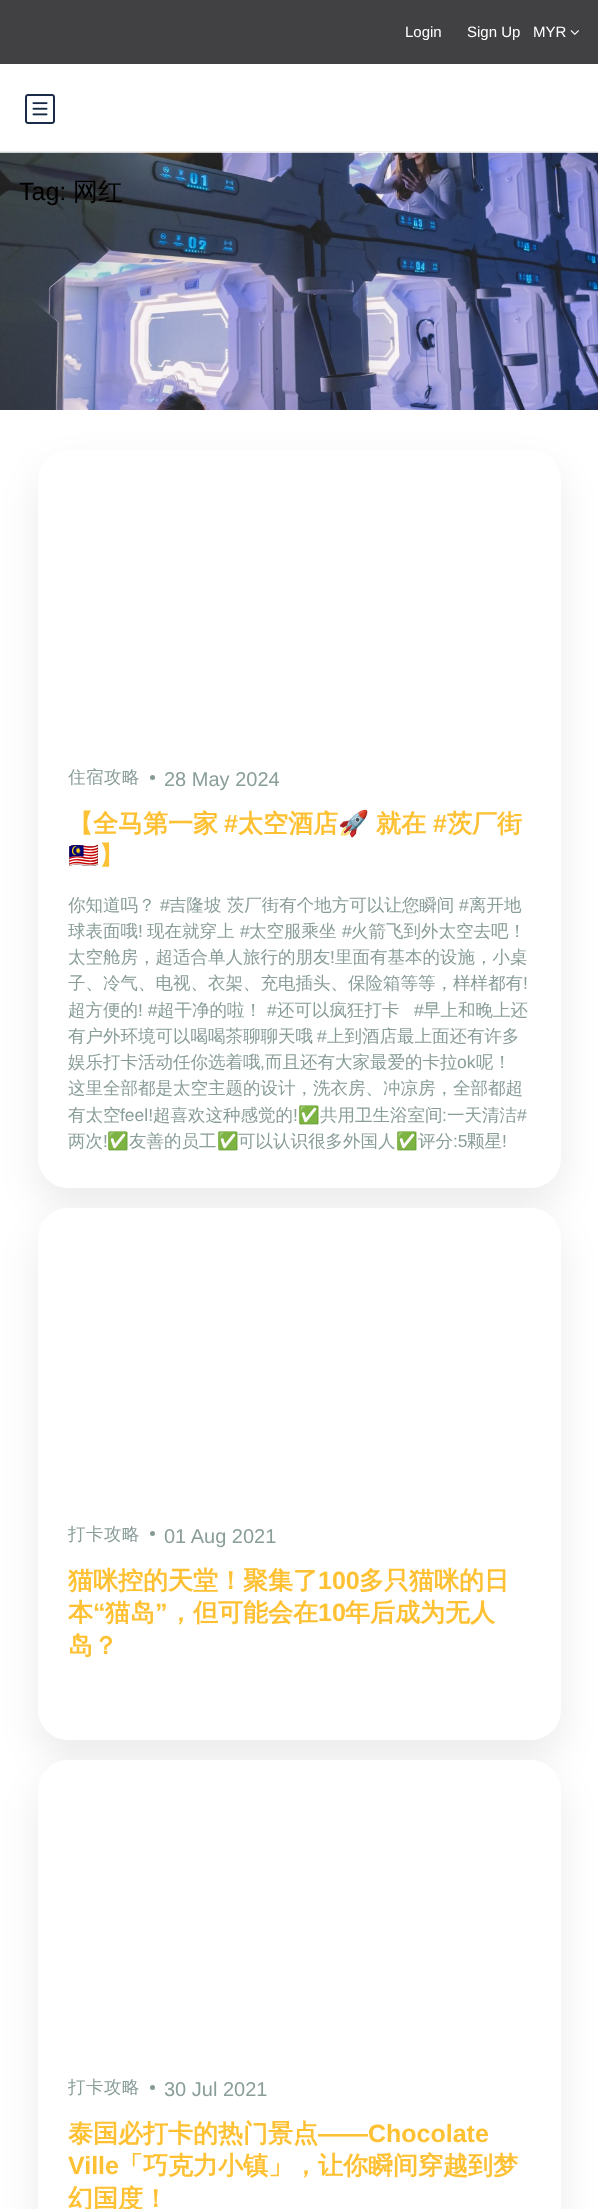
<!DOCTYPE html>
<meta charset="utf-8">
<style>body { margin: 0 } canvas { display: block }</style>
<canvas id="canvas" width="598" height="2209"></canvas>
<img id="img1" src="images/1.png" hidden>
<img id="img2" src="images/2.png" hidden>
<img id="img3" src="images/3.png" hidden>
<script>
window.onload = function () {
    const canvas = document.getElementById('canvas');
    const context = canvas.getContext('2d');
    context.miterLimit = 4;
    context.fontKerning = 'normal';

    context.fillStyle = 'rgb(255, 255, 255)';
    context.fillRect(0, 0, 598, 2209);
    context.fillStyle = 'rgb(65, 65, 67)';
    context.fillRect(0, 0, 598, 64);
    context.drawImage(document.getElementById('img1'), 570, 30, 9, 5);
    context.fillStyle = 'rgb(234, 238, 243)';
    context.fillRect(0, 151, 598, 1);
    context.drawImage(document.getElementById('img2'), 25, 94, 30, 30);
    context.drawImage(document.getElementById('img3'), 0, 152, 598, 258);
    context.fillStyle = 'rgba(0, 0, 0, 0.08)';
    context.filter = 'blur(19px)';
    context.beginPath();
    context.roundRect(38, 469, 523, 737, 30);
    context.fill();
    context.filter = 'none';
    context.fillStyle = 'rgb(255, 255, 255)';
    context.beginPath();
    context.roundRect(38, 450, 523, 738, 30);
    context.fill();
    context.fillStyle = 'rgb(134, 154, 150)';
    context.beginPath();
    context.arc(152.5, 777.5, 2.5, 0, 2 * Math.PI);
    context.fill();
    context.fillStyle = 'rgba(0, 0, 0, 0.08)';
    context.filter = 'blur(19px)';
    context.beginPath();
    context.roundRect(38, 1226, 523, 533, 30);
    context.fill();
    context.filter = 'none';
    context.fillStyle = 'rgb(255, 255, 255)';
    context.beginPath();
    context.roundRect(38, 1208, 523, 532, 30);
    context.fill();
    context.fillStyle = 'rgb(134, 154, 150)';
    context.beginPath();
    context.arc(152.5, 1533.5, 2.5, 0, 2 * Math.PI);
    context.fill();
    context.fillStyle = 'rgba(0, 0, 0, 0.08)';
    context.filter = 'blur(19px)';
    context.beginPath();
    context.roundRect(38, 1779, 523, 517, 30);
    context.fill();
    context.filter = 'none';
    context.fillStyle = 'rgb(255, 255, 255)';
    context.beginPath();
    context.roundRect(38, 1760, 523, 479, 30);
    context.fill();
    context.fillStyle = 'rgb(134, 154, 150)';
    context.beginPath();
    context.arc(152.5, 2087.5, 2.5, 0, 2 * Math.PI);
    context.fill();
    context.font = '15px Liberation Sans';
    context.fillStyle = 'rgb(255, 255, 255)';
    context.fillText('Login', 405, 37);
    context.fillText('Sign Up', 467, 37);
    context.fillText('MYR', 533, 37);
    context.font = '25px Liberation Sans';
    context.fillStyle = 'rgb(0, 0, 0)';
    context.fillText('Tag:', 19, 200);
    context.font = '500 25px WenQuanYi Zen Hei';
    context.fillText('网红', 73, 200);
    context.letterSpacing = '0.5px';
    context.font = '500 17.5px WenQuanYi Zen Hei';
    context.fillStyle = 'rgb(137, 157, 153)';
    context.fillText('住宿攻略', 68, 783);
    context.letterSpacing = '0px';
    context.font = '20px Liberation Sans';
    context.fillText('28 May 2024', 164, 786);
    context.font = 'bold 25px WenQuanYi Zen Hei';
    context.fillStyle = 'rgb(255, 193, 52)';
    context.fillText('【全马第一家', 68, 832);
    context.font = 'bold 25px Liberation Sans';
    context.fillText('#', 224, 832);
    context.font = 'bold 25px WenQuanYi Zen Hei';
    context.fillText('太空酒店', 238, 832);
    context.font = 'bold 25px Noto Color Emoji';
    context.fillText('🚀', 338, 832);
    context.font = 'bold 25px WenQuanYi Zen Hei';
    context.fillText('就在', 376, 832);
    context.font = 'bold 25px Liberation Sans';
    context.fillText('#', 433, 832);
    context.font = 'bold 25px WenQuanYi Zen Hei';
    context.fillText('茨厂街', 447, 832);
    context.font = 'bold 25px Noto Color Emoji';
    context.fillText('🇲🇾', 68, 864);
    context.font = 'bold 25px WenQuanYi Zen Hei';
    context.fillText('】', 99, 864);
    context.font = '500 17.5px WenQuanYi Zen Hei';
    context.fillStyle = 'rgb(137, 157, 153)';
    context.fillText('你知道吗？', 68, 911);
    context.font = '17.5px Liberation Sans';
    context.fillText('#', 160, 911);
    context.font = '500 17.5px WenQuanYi Zen Hei';
    context.fillText('吉隆坡 茨厂街有个地方可以让您瞬间', 169, 911);
    context.font = '17.5px Liberation Sans';
    context.fillText('#', 459, 911);
    context.font = '500 17.5px WenQuanYi Zen Hei';
    context.fillText('离开地', 469, 911);
    context.fillText('球表面哦', 68, 937);
    context.font = '17.5px Liberation Sans';
    context.fillText('!', 138, 937);
    context.font = '500 17.5px WenQuanYi Zen Hei';
    context.fillText('现在就穿上', 147, 937);
    context.font = '17.5px Liberation Sans';
    context.fillText('#', 240, 937);
    context.font = '500 17.5px WenQuanYi Zen Hei';
    context.fillText('太空服乘坐', 249, 937);
    context.font = '17.5px Liberation Sans';
    context.fillText('#', 342, 937);
    context.font = '500 17.5px WenQuanYi Zen Hei';
    context.fillText('火箭飞到外太空去吧！', 351, 937);
    context.fillText('太空舱房，超适合单人旅行的朋友', 68, 963);
    context.font = '17.5px Liberation Sans';
    context.fillText('!', 330, 963);
    context.font = '500 17.5px WenQuanYi Zen Hei';
    context.fillText('里面有基本的设施，小桌', 335, 963);
    context.fillText('子、冷气、电视、衣架、充电插头、保险箱等等，样样都有', 68, 989);
    context.font = '17.5px Liberation Sans';
    context.fillText('!', 523, 989);
    context.font = '500 17.5px WenQuanYi Zen Hei';
    context.fillText('超方便的', 68, 1016);
    context.font = '17.5px Liberation Sans';
    context.fillText('! #', 138, 1016);
    context.font = '500 17.5px WenQuanYi Zen Hei';
    context.fillText('超干净的啦！', 157, 1016);
    context.font = '17.5px Liberation Sans';
    context.fillText('#', 267, 1016);
    context.font = '500 17.5px WenQuanYi Zen Hei';
    context.fillText('还可以疯狂打卡', 277, 1016);
    context.font = '17.5px Liberation Sans';
    context.fillText('#', 414, 1016);
    context.font = '500 17.5px WenQuanYi Zen Hei';
    context.fillText('早上和晚上还', 423, 1016);
    context.fillText('有户外环境可以喝喝茶聊聊天哦', 68, 1042);
    context.font = '17.5px Liberation Sans';
    context.fillText('#', 317, 1042);
    context.font = '500 17.5px WenQuanYi Zen Hei';
    context.fillText('上到酒店最上面还有许多', 327, 1042);
    context.fillText('娱乐打卡活动任你选着哦', 68, 1068);
    context.font = '17.5px Liberation Sans';
    context.fillText(',', 260, 1068);
    context.font = '500 17.5px WenQuanYi Zen Hei';
    context.fillText('而且还有大家最爱的卡拉', 265, 1068);
    context.font = '17.5px Liberation Sans';
    context.fillText('ok', 457, 1068);
    context.font = '500 17.5px WenQuanYi Zen Hei';
    context.fillText('呢！', 476, 1068);
    context.fillText('这里全部都是太空主题的设计，洗衣房、冲凉房，全部都超', 68, 1094);
    context.fillText('有太空', 68, 1121);
    context.font = '17.5px Liberation Sans';
    context.fillText('feel!', 120, 1121);
    context.font = '500 17.5px WenQuanYi Zen Hei';
    context.fillText('超喜欢这种感觉的', 153, 1121);
    context.font = '17.5px Liberation Sans';
    context.fillText('!', 293, 1121);
    context.font = '17.5px Noto Color Emoji';
    context.fillText('✅', 298, 1121);
    context.font = '500 17.5px WenQuanYi Zen Hei';
    context.fillText('共用卫生浴室间', 320, 1121);
    context.font = '17.5px Liberation Sans';
    context.fillText(':', 442, 1121);
    context.font = '500 17.5px WenQuanYi Zen Hei';
    context.fillText('一天清洁', 447, 1121);
    context.font = '17.5px Liberation Sans';
    context.fillText('#', 517, 1121);
    context.font = '500 17.5px WenQuanYi Zen Hei';
    context.fillText('两次', 68, 1147);
    context.font = '17.5px Liberation Sans';
    context.fillText('!', 103, 1147);
    context.font = '17.5px Noto Color Emoji';
    context.fillText('✅', 107, 1147);
    context.font = '500 17.5px WenQuanYi Zen Hei';
    context.fillText('友善的员工', 129, 1147);
    context.font = '17.5px Noto Color Emoji';
    context.fillText('✅', 217, 1147);
    context.font = '500 17.5px WenQuanYi Zen Hei';
    context.fillText('可以认识很多外国人', 238, 1147);
    context.font = '17.5px Noto Color Emoji';
    context.fillText('✅', 396, 1147);
    context.font = '500 17.5px WenQuanYi Zen Hei';
    context.fillText('评分', 418, 1147);
    context.font = '17.5px Liberation Sans';
    context.fillText(':5', 453, 1147);
    context.font = '500 17.5px WenQuanYi Zen Hei';
    context.fillText('颗星', 467, 1147);
    context.font = '17.5px Liberation Sans';
    context.fillText('!', 502, 1147);
    context.letterSpacing = '0.5px';
    context.font = '500 17.5px WenQuanYi Zen Hei';
    context.fillText('打卡攻略', 68, 1540);
    context.letterSpacing = '0px';
    context.font = '20px Liberation Sans';
    context.fillText('01 Aug 2021', 164, 1543);
    context.font = 'bold 25px WenQuanYi Zen Hei';
    context.fillStyle = 'rgb(255, 193, 52)';
    context.fillText('猫咪控的天堂！聚集了', 68, 1589);
    context.font = 'bold 25px Liberation Sans';
    context.fillText('100', 318, 1589);
    context.font = 'bold 25px WenQuanYi Zen Hei';
    context.fillText('多只猫咪的日', 359, 1589);
    context.fillText('本', 68, 1621);
    context.font = 'bold 25px Liberation Sans';
    context.fillText('“', 93, 1621);
    context.font = 'bold 25px WenQuanYi Zen Hei';
    context.fillText('猫岛', 105, 1621);
    context.font = 'bold 25px Liberation Sans';
    context.fillText('”', 155, 1621);
    context.font = 'bold 25px WenQuanYi Zen Hei';
    context.fillText('，但可能会在', 168, 1621);
    context.font = 'bold 25px Liberation Sans';
    context.fillText('10', 318, 1621);
    context.font = 'bold 25px WenQuanYi Zen Hei';
    context.fillText('年后成为无人', 345, 1621);
    context.fillText('岛？', 68, 1654);
    context.letterSpacing = '0.5px';
    context.font = '500 17.5px WenQuanYi Zen Hei';
    context.fillStyle = 'rgb(137, 157, 153)';
    context.fillText('打卡攻略', 68, 2093);
    context.letterSpacing = '0px';
    context.font = '20px Liberation Sans';
    context.fillText('30 Jul 2021', 164, 2096);
    context.font = 'bold 25px WenQuanYi Zen Hei';
    context.fillStyle = 'rgb(255, 193, 52)';
    context.fillText('泰国必打卡的热门景点', 68, 2142);
    context.font = 'bold 25px Liberation Sans';
    context.fillText('——Chocolate', 318, 2142);
    context.fillText('Ville', 68, 2174);
    context.font = 'bold 25px WenQuanYi Zen Hei';
    context.fillText('「巧克力小镇」，让你瞬间穿越到梦', 118, 2174);
    context.fillText('幻国度！', 68, 2207);
};
</script>
